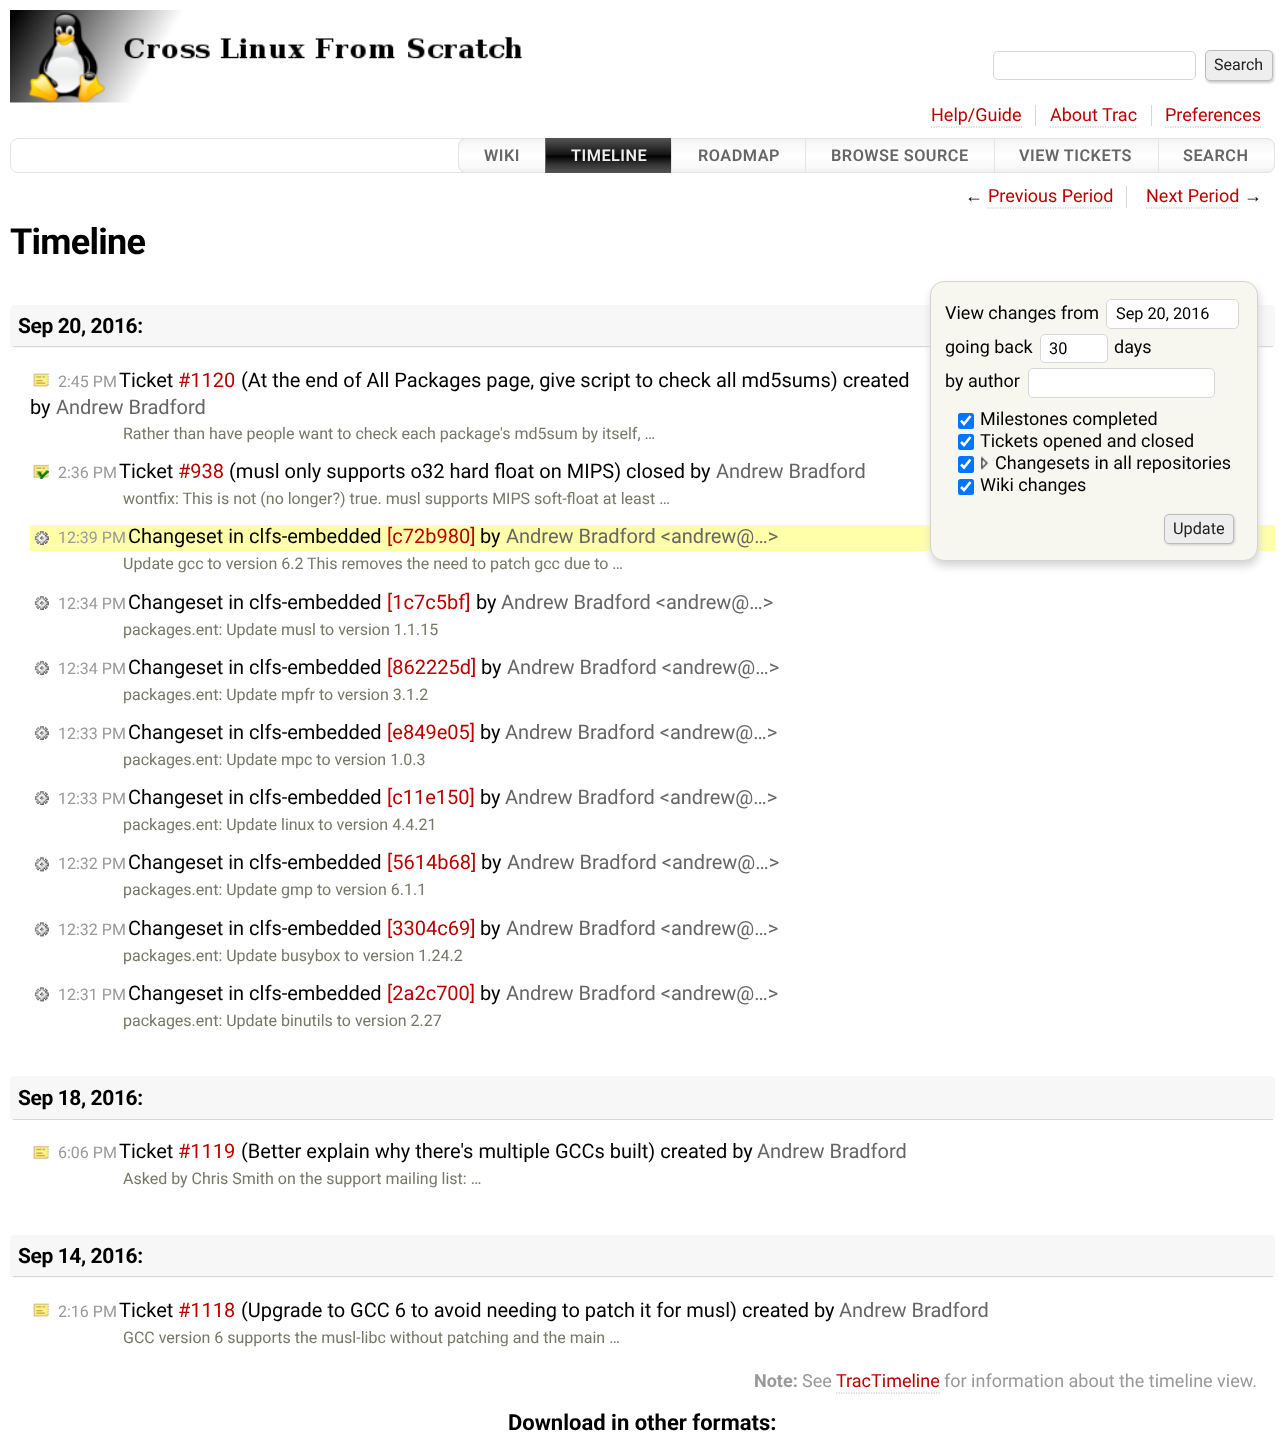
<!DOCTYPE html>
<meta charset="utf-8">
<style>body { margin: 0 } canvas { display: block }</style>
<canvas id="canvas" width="1284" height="1435"></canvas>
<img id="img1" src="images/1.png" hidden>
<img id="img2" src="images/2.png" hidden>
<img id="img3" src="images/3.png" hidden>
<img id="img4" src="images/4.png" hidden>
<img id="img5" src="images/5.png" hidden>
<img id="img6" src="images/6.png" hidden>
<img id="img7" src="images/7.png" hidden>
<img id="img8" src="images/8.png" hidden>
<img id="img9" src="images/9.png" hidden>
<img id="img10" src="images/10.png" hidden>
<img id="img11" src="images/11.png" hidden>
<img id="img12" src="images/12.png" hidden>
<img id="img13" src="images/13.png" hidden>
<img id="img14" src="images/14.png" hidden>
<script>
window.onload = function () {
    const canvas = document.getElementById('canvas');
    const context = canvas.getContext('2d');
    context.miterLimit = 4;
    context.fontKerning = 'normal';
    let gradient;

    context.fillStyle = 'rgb(255, 255, 255)';
    context.fillRect(0, 0, 1284, 1435);
    context.drawImage(document.getElementById('img1'), 10, 10, 512, 93);
    context.beginPath();
    context.roundRect(993.5, 51.5, 202, 28, 4.5);
    context.strokeStyle = 'rgb(215, 215, 215)';
    context.stroke();
    context.fillStyle = 'rgb(204, 204, 204)';
    context.filter = 'blur(1px)';
    context.beginPath();
    context.roundRect(1206, 51, 68, 32, 5);
    context.fill();
    context.filter = 'none';
    context.fillStyle = 'rgb(238, 238, 238)';
    context.beginPath();
    context.roundRect(1205.5, 50.5, 67, 30, 4.5);
    context.fill();
    context.strokeStyle = 'rgb(187, 187, 187)';
    context.stroke();
    context.fillStyle = 'rgb(215, 215, 215)';
    context.fillRect(1035, 105, 1, 21);
    context.beginPath();
    context.moveTo(931, 127);
    context.lineTo(1022.5, 127);
    context.lineWidth = 1.2;
    context.setLineDash([1.25, 1.25]);
    context.stroke();
    context.fillRect(1151, 105, 1, 21);
    context.beginPath();
    context.moveTo(1050, 127);
    context.lineTo(1137.5, 127);
    context.stroke();
    context.beginPath();
    context.moveTo(1165, 127);
    context.lineTo(1261, 127);
    context.stroke();
    context.beginPath();
    context.roundRect(10.5, 138.5, 1264, 34, 7.5);
    context.strokeStyle = 'rgb(228, 228, 228)';
    context.lineWidth = 1;
    context.setLineDash([]);
    context.stroke();
    context.save();
    context.beginPath();
    context.roundRect(458, 138, 88, 35, [8, 0, 0, 8]);
    context.clip();
    gradient = context.createLinearGradient(502, 139, 502, 171);
    gradient.addColorStop(0, 'rgb(242, 242, 242)');
    gradient.addColorStop(0.25, 'rgb(250, 250, 250)');
    gradient.addColorStop(0.49, 'rgb(254, 254, 254)');
    gradient.addColorStop(0.51, 'rgb(255, 255, 255)');
    gradient.addColorStop(0.85, 'rgb(250, 250, 250)');
    gradient.addColorStop(1, 'rgb(242, 242, 242)');
    context.fillStyle = gradient;
    context.fillRect(458, 139, 87, 32);
    gradient = context.createLinearGradient(502, 171, 502, 204);
    gradient.addColorStop(0, 'rgb(242, 242, 242)');
    gradient.addColorStop(0.25, 'rgb(250, 250, 250)');
    gradient.addColorStop(0.49, 'rgb(254, 254, 254)');
    gradient.addColorStop(0.51, 'rgb(255, 255, 255)');
    gradient.addColorStop(0.85, 'rgb(250, 250, 250)');
    gradient.addColorStop(1, 'rgb(242, 242, 242)');
    context.fillStyle = gradient;
    context.fillRect(458, 171, 88, 2);
    context.restore();
    context.beginPath();
    context.roundRect(458.5, 138.5, 87, 34, [7.5, 0, 0, 7.5]);
    context.stroke();
    context.strokeStyle = 'rgb(102, 102, 102)';
    context.strokeRect(545.5, 138.5, 128, 34);
    gradient = context.createLinearGradient(609, 138, 609, 173);
    gradient.addColorStop(0, 'rgb(85, 85, 85)');
    gradient.addColorStop(0.25, 'rgb(51, 51, 51)');
    gradient.addColorStop(0.49, 'rgb(17, 17, 17)');
    gradient.addColorStop(0.51, 'rgb(0, 0, 0)');
    gradient.addColorStop(0.75, 'rgb(51, 51, 51)');
    gradient.addColorStop(1, 'rgb(85, 85, 85)');
    context.fillStyle = gradient;
    context.fillRect(546, 138, 125, 35);
    gradient = context.createLinearGradient(739, 139, 739, 171);
    gradient.addColorStop(0, 'rgb(242, 242, 242)');
    gradient.addColorStop(0.25, 'rgb(250, 250, 250)');
    gradient.addColorStop(0.49, 'rgb(254, 254, 254)');
    gradient.addColorStop(0.51, 'rgb(255, 255, 255)');
    gradient.addColorStop(0.85, 'rgb(250, 250, 250)');
    gradient.addColorStop(1, 'rgb(242, 242, 242)');
    context.fillStyle = gradient;
    context.fillRect(672, 139, 133, 32);
    gradient = context.createLinearGradient(739, 171, 739, 204);
    gradient.addColorStop(0, 'rgb(242, 242, 242)');
    gradient.addColorStop(0.25, 'rgb(250, 250, 250)');
    gradient.addColorStop(0.49, 'rgb(254, 254, 254)');
    gradient.addColorStop(0.51, 'rgb(255, 255, 255)');
    gradient.addColorStop(0.85, 'rgb(250, 250, 250)');
    gradient.addColorStop(1, 'rgb(242, 242, 242)');
    context.fillStyle = gradient;
    context.fillRect(671, 171, 135, 1);
    context.strokeStyle = 'rgb(228, 228, 228)';
    context.strokeRect(671.5, 138.5, 134, 34);
    gradient = context.createLinearGradient(900, 139, 900, 171);
    gradient.addColorStop(0, 'rgb(242, 242, 242)');
    gradient.addColorStop(0.25, 'rgb(250, 250, 250)');
    gradient.addColorStop(0.49, 'rgb(254, 254, 254)');
    gradient.addColorStop(0.51, 'rgb(255, 255, 255)');
    gradient.addColorStop(0.85, 'rgb(250, 250, 250)');
    gradient.addColorStop(1, 'rgb(242, 242, 242)');
    context.fillStyle = gradient;
    context.fillRect(806, 139, 188, 32);
    gradient = context.createLinearGradient(900, 171, 900, 204);
    gradient.addColorStop(0, 'rgb(242, 242, 242)');
    gradient.addColorStop(0.25, 'rgb(250, 250, 250)');
    gradient.addColorStop(0.49, 'rgb(254, 254, 254)');
    gradient.addColorStop(0.51, 'rgb(255, 255, 255)');
    gradient.addColorStop(0.85, 'rgb(250, 250, 250)');
    gradient.addColorStop(1, 'rgb(242, 242, 242)');
    context.fillStyle = gradient;
    context.fillRect(805, 171, 190, 1);
    context.strokeRect(805.5, 138.5, 189, 34);
    gradient = context.createLinearGradient(1076, 139, 1076, 171);
    gradient.addColorStop(0, 'rgb(242, 242, 242)');
    gradient.addColorStop(0.25, 'rgb(250, 250, 250)');
    gradient.addColorStop(0.49, 'rgb(254, 254, 254)');
    gradient.addColorStop(0.51, 'rgb(255, 255, 255)');
    gradient.addColorStop(0.85, 'rgb(250, 250, 250)');
    gradient.addColorStop(1, 'rgb(242, 242, 242)');
    context.fillStyle = gradient;
    context.fillRect(995, 139, 163, 32);
    gradient = context.createLinearGradient(1076, 171, 1076, 204);
    gradient.addColorStop(0, 'rgb(242, 242, 242)');
    gradient.addColorStop(0.25, 'rgb(250, 250, 250)');
    gradient.addColorStop(0.49, 'rgb(254, 254, 254)');
    gradient.addColorStop(0.51, 'rgb(255, 255, 255)');
    gradient.addColorStop(0.85, 'rgb(250, 250, 250)');
    gradient.addColorStop(1, 'rgb(242, 242, 242)');
    context.fillStyle = gradient;
    context.fillRect(994, 171, 165, 1);
    context.strokeRect(994.5, 138.5, 164, 34);
    context.save();
    context.beginPath();
    context.roundRect(1158, 138, 117, 35, [0, 8, 8, 0]);
    context.clip();
    gradient = context.createLinearGradient(1216, 139, 1216, 171);
    gradient.addColorStop(0, 'rgb(242, 242, 242)');
    gradient.addColorStop(0.25, 'rgb(250, 250, 250)');
    gradient.addColorStop(0.49, 'rgb(254, 254, 254)');
    gradient.addColorStop(0.51, 'rgb(255, 255, 255)');
    gradient.addColorStop(0.85, 'rgb(250, 250, 250)');
    gradient.addColorStop(1, 'rgb(242, 242, 242)');
    context.fillStyle = gradient;
    context.fillRect(1159, 139, 116, 32);
    gradient = context.createLinearGradient(1216, 171, 1216, 204);
    gradient.addColorStop(0, 'rgb(242, 242, 242)');
    gradient.addColorStop(0.25, 'rgb(250, 250, 250)');
    gradient.addColorStop(0.49, 'rgb(254, 254, 254)');
    gradient.addColorStop(0.51, 'rgb(255, 255, 255)');
    gradient.addColorStop(0.85, 'rgb(250, 250, 250)');
    gradient.addColorStop(1, 'rgb(242, 242, 242)');
    context.fillStyle = gradient;
    context.fillRect(1158, 171, 117, 2);
    context.restore();
    context.beginPath();
    context.roundRect(1158.5, 138.5, 116, 34, [0, 7.5, 7.5, 0]);
    context.stroke();
    context.fillStyle = 'rgb(215, 215, 215)';
    context.fillRect(1126, 186, 1, 22);
    context.beginPath();
    context.moveTo(987.5, 208);
    context.lineTo(1112.5, 208);
    context.strokeStyle = 'rgb(187, 187, 187)';
    context.lineWidth = 1.2;
    context.setLineDash([1.25, 1.25]);
    context.stroke();
    context.beginPath();
    context.moveTo(1146, 208);
    context.lineTo(1239, 208);
    context.stroke();
    context.fillStyle = 'rgb(247, 247, 247)';
    context.beginPath();
    context.roundRect(10, 305, 1265, 43, 4);
    context.fill();
    context.fillStyle = 'rgb(215, 215, 215)';
    context.fillRect(13, 346, 1260, 1);
    context.fillStyle = 'rgb(255, 255, 170)';
    context.fillRect(30, 525, 1245, 26);
    context.fillStyle = 'rgb(212, 212, 212)';
    context.filter = 'blur(4.5px)';
    context.beginPath();
    context.roundRect(931, 286, 328, 280, 14);
    context.fill();
    context.filter = 'none';
    context.fillStyle = 'rgb(247, 247, 240)';
    context.beginPath();
    context.roundRect(930.5, 281.5, 327, 279, 13.5);
    context.fill();
    context.strokeStyle = 'rgb(212, 212, 212)';
    context.lineWidth = 1;
    context.setLineDash([]);
    context.stroke();
    context.fillStyle = 'rgb(255, 255, 255)';
    context.beginPath();
    context.roundRect(1106.5, 299.5, 132, 29, 4.5);
    context.fill();
    context.strokeStyle = 'rgb(215, 215, 215)';
    context.stroke();
    context.beginPath();
    context.roundRect(1040.5, 334.5, 67, 28, 4.5);
    context.fill();
    context.stroke();
    context.beginPath();
    context.roundRect(1028.5, 368.5, 186, 29, 4.5);
    context.fill();
    context.stroke();
    context.fillStyle = 'rgb(0, 117, 255)';
    context.beginPath();
    context.roundRect(958, 413, 16, 16, 2.5);
    context.fill();
    context.beginPath();
    context.moveTo(961, 420.5);
    context.lineTo(964, 424);
    context.lineTo(970.5, 416);
    context.strokeStyle = 'rgb(255, 255, 255)';
    context.lineWidth = 2.6;
    context.stroke();
    context.beginPath();
    context.roundRect(958, 434, 16, 16, 2.5);
    context.fill();
    context.beginPath();
    context.moveTo(961, 442);
    context.lineTo(964, 445);
    context.lineTo(970.5, 437);
    context.stroke();
    context.beginPath();
    context.roundRect(958, 456, 16, 17, 2.5);
    context.fill();
    context.beginPath();
    context.moveTo(961, 464.5);
    context.lineTo(964, 467.5);
    context.lineTo(970.5, 459.5);
    context.stroke();
    context.drawImage(document.getElementById('img2'), 981, 456, 8, 14);
    context.beginPath();
    context.roundRect(958, 479, 16, 16, 2.5);
    context.fill();
    context.beginPath();
    context.moveTo(961, 487);
    context.lineTo(964, 490);
    context.lineTo(970.5, 482);
    context.stroke();
    context.fillStyle = 'rgb(204, 204, 204)';
    context.filter = 'blur(1px)';
    context.beginPath();
    context.roundRect(1165, 515, 70, 30, 5);
    context.fill();
    context.filter = 'none';
    context.fillStyle = 'rgb(238, 238, 238)';
    context.beginPath();
    context.roundRect(1164.5, 514.5, 69, 29, 4.5);
    context.fill();
    context.strokeStyle = 'rgb(187, 187, 187)';
    context.lineWidth = 1;
    context.stroke();
    context.drawImage(document.getElementById('img3'), 33, 373, 16, 14);
    context.drawImage(document.getElementById('img4'), 33, 373, 16, 14);
    context.drawImage(document.getElementById('img5'), 33, 464, 16, 15);
    context.drawImage(document.getElementById('img6'), 33, 464, 16, 15);
    context.drawImage(document.getElementById('img7'), 34, 531, 15, 14);
    context.drawImage(document.getElementById('img8'), 34, 531, 15, 14);
    context.drawImage(document.getElementById('img9'), 34, 596, 15, 14);
    context.drawImage(document.getElementById('img10'), 34, 596, 15, 14);
    context.drawImage(document.getElementById('img9'), 34, 661, 15, 14);
    context.drawImage(document.getElementById('img10'), 34, 661, 15, 14);
    context.drawImage(document.getElementById('img9'), 34, 726, 15, 14);
    context.drawImage(document.getElementById('img10'), 34, 726, 15, 14);
    context.drawImage(document.getElementById('img9'), 34, 791, 15, 14);
    context.drawImage(document.getElementById('img10'), 34, 791, 15, 14);
    context.drawImage(document.getElementById('img11'), 34, 857, 15, 15);
    context.drawImage(document.getElementById('img12'), 34, 857, 15, 15);
    context.drawImage(document.getElementById('img11'), 34, 922, 15, 15);
    context.drawImage(document.getElementById('img12'), 34, 922, 15, 15);
    context.drawImage(document.getElementById('img11'), 34, 987, 15, 15);
    context.drawImage(document.getElementById('img12'), 34, 987, 15, 15);
    context.fillStyle = 'rgb(247, 247, 247)';
    context.beginPath();
    context.roundRect(10, 1076, 1265, 44, 4);
    context.fill();
    context.fillStyle = 'rgb(215, 215, 215)';
    context.fillRect(13, 1119, 1260, 1);
    context.drawImage(document.getElementById('img13'), 33, 1146, 16, 13);
    context.drawImage(document.getElementById('img14'), 33, 1146, 16, 13);
    context.fillStyle = 'rgb(247, 247, 247)';
    context.beginPath();
    context.roundRect(10, 1235, 1265, 43, 4);
    context.fill();
    context.fillStyle = 'rgb(215, 215, 215)';
    context.fillRect(13, 1276, 1260, 1);
    context.drawImage(document.getElementById('img3'), 33, 1303, 16, 14);
    context.drawImage(document.getElementById('img4'), 33, 1303, 16, 14);
    context.beginPath();
    context.moveTo(836, 1393);
    context.lineTo(940, 1393);
    context.lineWidth = 1.2;
    context.setLineDash([1.25, 1.25]);
    context.stroke();
    context.font = '16px Roboto';
    context.fillStyle = 'rgb(34, 34, 34)';
    context.fillText('Search', 1214, 70);
    context.font = '18px Roboto';
    context.fillStyle = 'rgb(187, 0, 0)';
    context.fillText('Help/Guide', 931, 121);
    context.fillText('About Trac', 1050, 121);
    context.fillText('Preferences', 1165, 121);
    context.letterSpacing = '0.5px';
    context.font = '600 16.25px Roboto';
    context.fillStyle = 'rgb(102, 102, 102)';
    context.fillText('WIKI', 484, 161);
    context.fillStyle = 'rgb(238, 238, 238)';
    context.fillText('TIMELINE', 571, 161);
    context.fillStyle = 'rgb(102, 102, 102)';
    context.fillText('ROADMAP', 698, 161);
    context.fillText('BROWSE SOURCE', 831, 161);
    context.fillText('VIEW TICKETS', 1019, 161);
    context.fillText('SEARCH', 1183, 161);
    context.letterSpacing = '0px';
    context.font = '18px Liberation Sans';
    context.fillStyle = 'rgb(0, 0, 0)';
    context.fillText('←', 965, 202);
    context.font = '18px Roboto';
    context.fillStyle = 'rgb(187, 0, 0)';
    context.fillText('Previous Period', 988, 202);
    context.fillText('Next Period', 1146, 202);
    context.font = '18px Liberation Sans';
    context.fillStyle = 'rgb(0, 0, 0)';
    context.fillText('→', 1244, 202);
    context.letterSpacing = '-0.75px';
    context.font = 'bold 36px Roboto';
    context.fillText('Timeline', 10, 254);
    context.letterSpacing = '-0.4px';
    context.font = 'bold 21px Roboto';
    context.fillText('Sep 20, 2016:', 18, 333);
    context.letterSpacing = '0px';
    context.font = '18px Roboto';
    context.fillText('View changes from', 945, 319);
    context.font = '16.25px Roboto';
    context.fillText('Sep 20, 2016', 1116, 319);
    context.font = '18px Roboto';
    context.fillText('going back', 945, 353);
    context.font = '16.25px Roboto';
    context.fillText('30', 1049, 354);
    context.font = '18px Roboto';
    context.fillText('days', 1114, 353);
    context.fillText('by author', 945, 387);
    context.fillText('Milestones completed', 980, 425);
    context.fillText('Tickets opened and closed', 980, 447);
    context.fillText('Changesets in all repositories', 995, 469);
    context.fillText('Wiki changes', 980, 491);
    context.font = '16.25px Roboto';
    context.fillStyle = 'rgb(34, 34, 34)';
    context.fillText('Update', 1173, 534);
    context.font = '16px Roboto';
    context.fillStyle = 'rgb(153, 153, 153)';
    context.fillText('2:45 PM', 58, 387);
    context.font = '20px Roboto';
    context.fillStyle = 'rgb(0, 0, 0)';
    context.fillText('Ticket', 119, 387);
    context.fillStyle = 'rgb(187, 0, 0)';
    context.fillText('#1120', 178, 387);
    context.fillStyle = 'rgb(0, 0, 0)';
    context.fillText('(At the end of All Packages page, give script to check all md5sums) created', 241, 387);
    context.fillText('by', 30, 414);
    context.fillStyle = 'rgb(102, 102, 102)';
    context.fillText('Andrew Bradford', 56, 414);
    context.font = '16px Roboto';
    context.fillStyle = 'rgb(119, 119, 102)';
    context.fillText('Rather than have people want to check each package\'s md5sum by itself, …', 123, 439);
    context.fillStyle = 'rgb(153, 153, 153)';
    context.fillText('2:36 PM', 58, 478);
    context.font = '20px Roboto';
    context.fillStyle = 'rgb(0, 0, 0)';
    context.fillText('Ticket', 119, 478);
    context.fillStyle = 'rgb(187, 0, 0)';
    context.fillText('#938', 178, 478);
    context.fillStyle = 'rgb(0, 0, 0)';
    context.fillText('(musl only supports o32 hard float on MIPS) closed by', 229, 478);
    context.fillStyle = 'rgb(102, 102, 102)';
    context.fillText('Andrew Bradford', 716, 478);
    context.font = '16px Roboto';
    context.fillStyle = 'rgb(119, 119, 102)';
    context.fillText('wontfix: This is not (no longer?) true. musl supports MIPS soft-float at least …', 123, 504);
    context.fillStyle = 'rgb(153, 153, 153)';
    context.fillText('12:39 PM', 58, 543);
    context.font = '20px Roboto';
    context.fillStyle = 'rgb(0, 0, 0)';
    context.fillText('Changeset in clfs-embedded', 128, 543);
    context.fillStyle = 'rgb(187, 0, 0)';
    context.fillText('[c72b980]', 387, 543);
    context.fillStyle = 'rgb(0, 0, 0)';
    context.fillText('by', 480, 543);
    context.fillStyle = 'rgb(102, 102, 102)';
    context.fillText('Andrew Bradford <andrew@…>', 506, 543);
    context.font = '16px Roboto';
    context.fillStyle = 'rgb(119, 119, 102)';
    context.fillText('Update gcc to version 6.2', 123, 569);
    context.fillText('This removes the need to patch gcc due to …', 307, 569);
    context.fillStyle = 'rgb(153, 153, 153)';
    context.fillText('12:34 PM', 58, 609);
    context.font = '20px Roboto';
    context.fillStyle = 'rgb(0, 0, 0)';
    context.fillText('Changeset in clfs-embedded', 128, 609);
    context.fillStyle = 'rgb(187, 0, 0)';
    context.fillText('[1c7c5bf]', 387, 609);
    context.fillStyle = 'rgb(0, 0, 0)';
    context.fillText('by', 476, 609);
    context.fillStyle = 'rgb(102, 102, 102)';
    context.fillText('Andrew Bradford <andrew@…>', 501, 609);
    context.font = '16px Roboto';
    context.fillStyle = 'rgb(119, 119, 102)';
    context.fillText('packages.ent: Update musl to version 1.1.15', 123, 635);
    context.fillStyle = 'rgb(153, 153, 153)';
    context.fillText('12:34 PM', 58, 674);
    context.font = '20px Roboto';
    context.fillStyle = 'rgb(0, 0, 0)';
    context.fillText('Changeset in clfs-embedded', 128, 674);
    context.fillStyle = 'rgb(187, 0, 0)';
    context.fillText('[862225d]', 387, 674);
    context.fillStyle = 'rgb(0, 0, 0)';
    context.fillText('by', 481, 674);
    context.fillStyle = 'rgb(102, 102, 102)';
    context.fillText('Andrew Bradford <andrew@…>', 507, 674);
    context.font = '16px Roboto';
    context.fillStyle = 'rgb(119, 119, 102)';
    context.fillText('packages.ent: Update mpfr to version 3.1.2', 123, 700);
    context.fillStyle = 'rgb(153, 153, 153)';
    context.fillText('12:33 PM', 58, 739);
    context.font = '20px Roboto';
    context.fillStyle = 'rgb(0, 0, 0)';
    context.fillText('Changeset in clfs-embedded', 128, 739);
    context.fillStyle = 'rgb(187, 0, 0)';
    context.fillText('[e849e05]', 387, 739);
    context.fillStyle = 'rgb(0, 0, 0)';
    context.fillText('by', 480, 739);
    context.fillStyle = 'rgb(102, 102, 102)';
    context.fillText('Andrew Bradford <andrew@…>', 505, 739);
    context.font = '16px Roboto';
    context.fillStyle = 'rgb(119, 119, 102)';
    context.fillText('packages.ent: Update mpc to version 1.0.3', 123, 765);
    context.fillStyle = 'rgb(153, 153, 153)';
    context.fillText('12:33 PM', 58, 804);
    context.font = '20px Roboto';
    context.fillStyle = 'rgb(0, 0, 0)';
    context.fillText('Changeset in clfs-embedded', 128, 804);
    context.fillStyle = 'rgb(187, 0, 0)';
    context.fillText('[c11e150]', 387, 804);
    context.fillStyle = 'rgb(0, 0, 0)';
    context.fillText('by', 480, 804);
    context.fillStyle = 'rgb(102, 102, 102)';
    context.fillText('Andrew Bradford <andrew@…>', 505, 804);
    context.font = '16px Roboto';
    context.fillStyle = 'rgb(119, 119, 102)';
    context.fillText('packages.ent: Update linux to version 4.4.21', 123, 830);
    context.fillStyle = 'rgb(153, 153, 153)';
    context.fillText('12:32 PM', 58, 869);
    context.font = '20px Roboto';
    context.fillStyle = 'rgb(0, 0, 0)';
    context.fillText('Changeset in clfs-embedded', 128, 869);
    context.fillStyle = 'rgb(187, 0, 0)';
    context.fillText('[5614b68]', 387, 869);
    context.fillStyle = 'rgb(0, 0, 0)';
    context.fillText('by', 481, 869);
    context.fillStyle = 'rgb(102, 102, 102)';
    context.fillText('Andrew Bradford <andrew@…>', 507, 869);
    context.font = '16px Roboto';
    context.fillStyle = 'rgb(119, 119, 102)';
    context.fillText('packages.ent: Update gmp to version 6.1.1', 123, 895);
    context.fillStyle = 'rgb(153, 153, 153)';
    context.fillText('12:32 PM', 58, 935);
    context.font = '20px Roboto';
    context.fillStyle = 'rgb(0, 0, 0)';
    context.fillText('Changeset in clfs-embedded', 128, 935);
    context.fillStyle = 'rgb(187, 0, 0)';
    context.fillText('[3304c69]', 387, 935);
    context.fillStyle = 'rgb(0, 0, 0)';
    context.fillText('by', 480, 935);
    context.fillStyle = 'rgb(102, 102, 102)';
    context.fillText('Andrew Bradford <andrew@…>', 506, 935);
    context.font = '16px Roboto';
    context.fillStyle = 'rgb(119, 119, 102)';
    context.fillText('packages.ent: Update busybox to version 1.24.2', 123, 961);
    context.fillStyle = 'rgb(153, 153, 153)';
    context.fillText('12:31 PM', 58, 1000);
    context.font = '20px Roboto';
    context.fillStyle = 'rgb(0, 0, 0)';
    context.fillText('Changeset in clfs-embedded', 128, 1000);
    context.fillStyle = 'rgb(187, 0, 0)';
    context.fillText('[2a2c700]', 387, 1000);
    context.fillStyle = 'rgb(0, 0, 0)';
    context.fillText('by', 480, 1000);
    context.fillStyle = 'rgb(102, 102, 102)';
    context.fillText('Andrew Bradford <andrew@…>', 506, 1000);
    context.font = '16px Roboto';
    context.fillStyle = 'rgb(119, 119, 102)';
    context.fillText('packages.ent: Update binutils to version 2.27', 123, 1026);
    context.letterSpacing = '-0.4px';
    context.font = 'bold 21px Roboto';
    context.fillStyle = 'rgb(0, 0, 0)';
    context.fillText('Sep 18, 2016:', 18, 1105);
    context.letterSpacing = '0px';
    context.font = '16px Roboto';
    context.fillStyle = 'rgb(153, 153, 153)';
    context.fillText('6:06 PM', 58, 1158);
    context.font = '20px Roboto';
    context.fillStyle = 'rgb(0, 0, 0)';
    context.fillText('Ticket', 119, 1158);
    context.fillStyle = 'rgb(187, 0, 0)';
    context.fillText('#1119', 178, 1158);
    context.fillStyle = 'rgb(0, 0, 0)';
    context.fillText('(Better explain why there\'s multiple GCCs built) created by', 241, 1158);
    context.fillStyle = 'rgb(102, 102, 102)';
    context.fillText('Andrew Bradford', 757, 1158);
    context.font = '16px Roboto';
    context.fillStyle = 'rgb(119, 119, 102)';
    context.fillText('Asked by Chris Smith on the support mailing list: …', 123, 1184);
    context.letterSpacing = '-0.4px';
    context.font = 'bold 21px Roboto';
    context.fillStyle = 'rgb(0, 0, 0)';
    context.fillText('Sep 14, 2016:', 18, 1263);
    context.letterSpacing = '0px';
    context.font = '16px Roboto';
    context.fillStyle = 'rgb(153, 153, 153)';
    context.fillText('2:16 PM', 58, 1317);
    context.font = '20px Roboto';
    context.fillStyle = 'rgb(0, 0, 0)';
    context.fillText('Ticket', 119, 1317);
    context.fillStyle = 'rgb(187, 0, 0)';
    context.fillText('#1118', 178, 1317);
    context.fillStyle = 'rgb(0, 0, 0)';
    context.fillText('(Upgrade to GCC 6 to avoid needing to patch it for musl) created by', 241, 1317);
    context.fillStyle = 'rgb(102, 102, 102)';
    context.fillText('Andrew Bradford', 839, 1317);
    context.font = '16px Roboto';
    context.fillStyle = 'rgb(119, 119, 102)';
    context.fillText('GCC version 6 supports the musl-libc without patching and the main …', 123, 1343);
    context.font = 'bold 18px Roboto';
    context.fillStyle = 'rgb(153, 153, 153)';
    context.fillText('Note:', 754, 1387);
    context.font = '18px Roboto';
    context.fillText('See', 802, 1387);
    context.fillStyle = 'rgb(187, 0, 0)';
    context.fillText('TracTimeline', 836, 1387);
    context.fillStyle = 'rgb(153, 153, 153)';
    context.fillText('for information about the timeline view.', 944, 1387);
    context.font = 'bold 22px Roboto';
    context.fillStyle = 'rgb(0, 0, 0)';
    context.fillText('Download in other formats:', 508, 1430);
};
</script>
